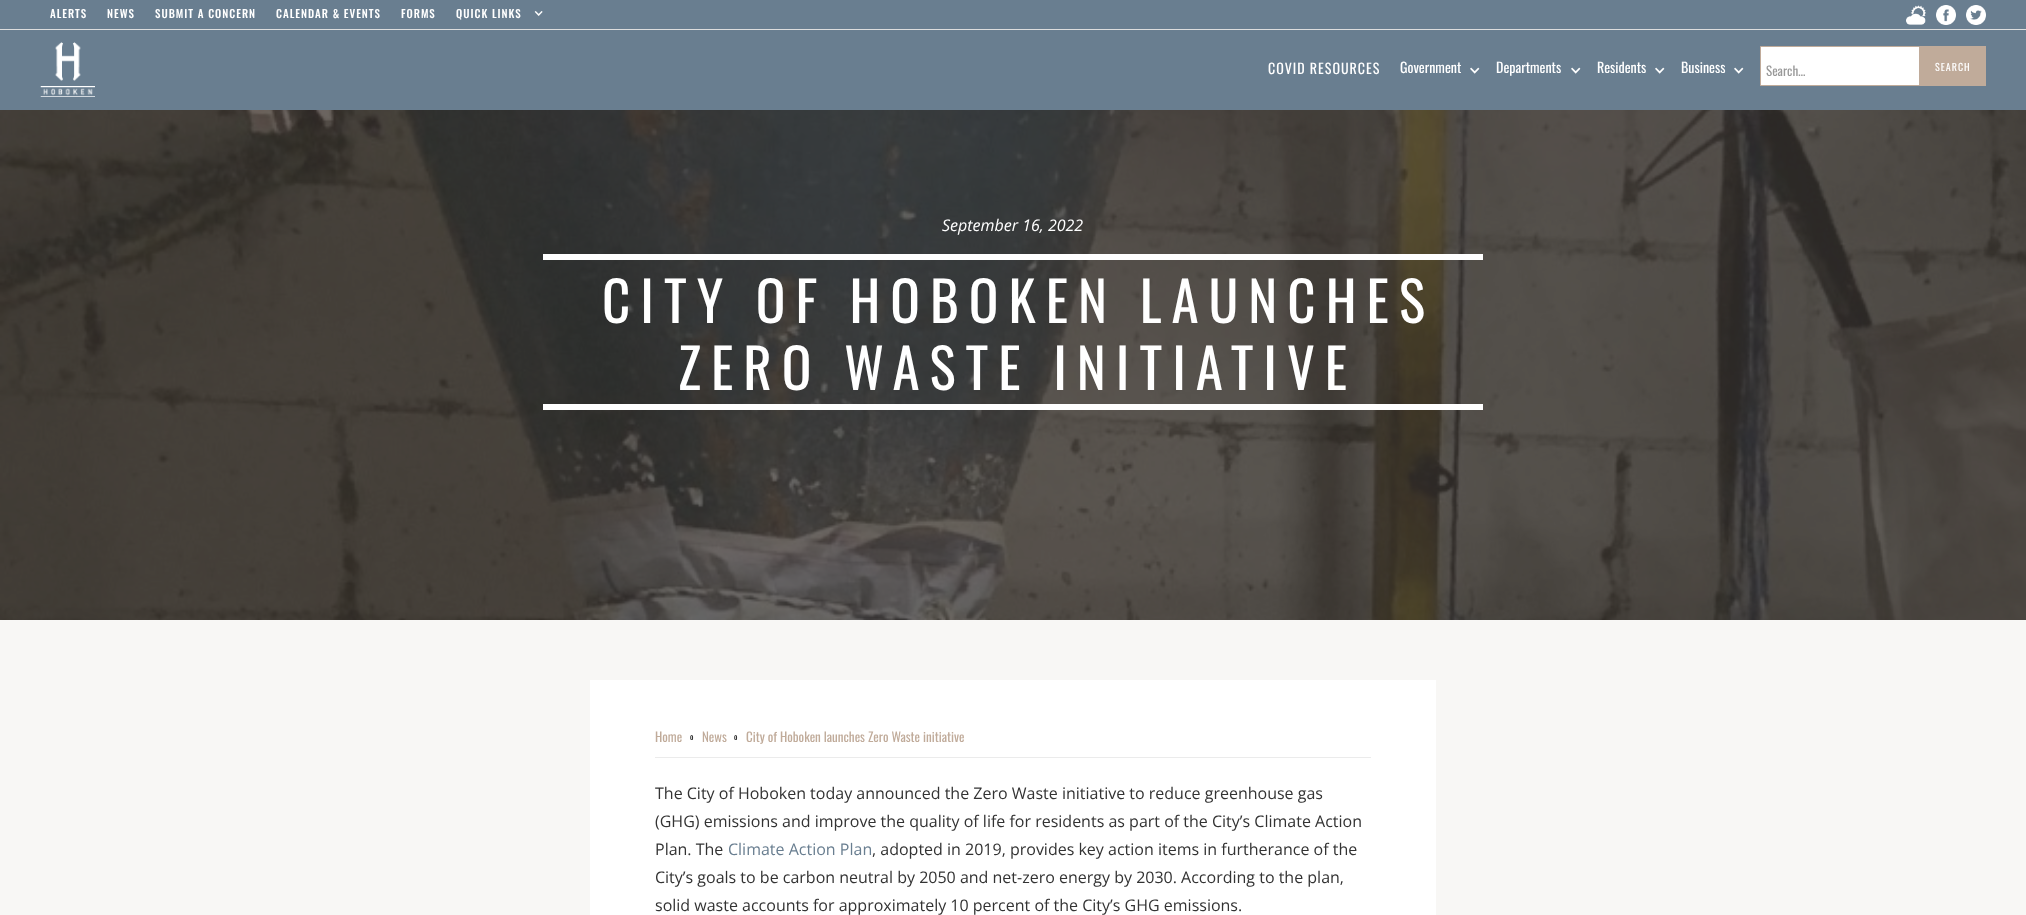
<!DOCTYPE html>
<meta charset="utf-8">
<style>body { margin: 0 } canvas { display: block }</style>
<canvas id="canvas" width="2026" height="915"></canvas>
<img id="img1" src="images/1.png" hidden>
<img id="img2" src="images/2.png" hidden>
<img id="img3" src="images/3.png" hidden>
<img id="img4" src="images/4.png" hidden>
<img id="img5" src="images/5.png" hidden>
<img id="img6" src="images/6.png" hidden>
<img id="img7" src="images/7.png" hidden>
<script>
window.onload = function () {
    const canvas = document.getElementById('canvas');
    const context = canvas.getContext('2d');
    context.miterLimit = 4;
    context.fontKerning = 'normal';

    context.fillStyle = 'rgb(255, 255, 255)';
    context.fillRect(0, 0, 2026, 915);
    context.fillStyle = 'rgb(105, 126, 144)';
    context.fillRect(0, 0, 2026, 29);
    context.fillStyle = 'rgb(221, 221, 221)';
    context.fillRect(0, 29, 2026, 1);
    context.drawImage(document.getElementById('img1'), 534, 11, 9, 5);
    context.drawImage(document.getElementById('img2'), 1906, 5, 20, 20);
    context.drawImage(document.getElementById('img3'), 1936, 5, 20, 20);
    context.drawImage(document.getElementById('img4'), 1966, 5, 20, 20);
    context.fillStyle = 'rgb(105, 126, 144)';
    context.fillRect(0, 30, 2026, 80);
    context.drawImage(document.getElementById('img5'), 40, 42, 55, 55);
    context.drawImage(document.getElementById('img6'), 1470, 67, 10, 7);
    context.drawImage(document.getElementById('img6'), 1571, 67, 10, 7);
    context.drawImage(document.getElementById('img6'), 1655, 67, 10, 7);
    context.drawImage(document.getElementById('img6'), 1734, 67, 10, 7);
    context.fillStyle = 'rgb(255, 255, 255)';
    context.beginPath();
    context.rect(1760.5, 46.5, 159, 39);
    context.fill();
    context.strokeStyle = 'rgb(192, 171, 154)';
    context.stroke();
    context.fillStyle = 'rgb(192, 171, 154)';
    context.fillRect(1920, 46, 66, 40);
    context.drawImage(document.getElementById('img7'), 0, 110, 2026, 510);
    context.fillStyle = 'rgb(255, 255, 255)';
    context.fillRect(543, 254, 940, 6);
    context.fillRect(543, 404, 940, 6);
    context.fillStyle = 'rgb(248, 247, 245)';
    context.fillRect(0, 620, 2026, 295);
    context.fillStyle = 'rgb(255, 255, 255)';
    context.fillRect(590, 680, 846, 235);
    context.fillStyle = 'rgb(235, 235, 235)';
    context.fillRect(655, 757, 716, 1);
    context.letterSpacing = '1px';
    context.font = '500 11px Oswald';
    context.fillStyle = 'rgb(255, 255, 255)';
    context.fillText('ALERTS', 50, 18);
    context.fillText('NEWS', 107, 18);
    context.fillText('SUBMIT A CONCERN', 155, 18);
    context.fillText('CALENDAR & EVENTS', 276, 18);
    context.fillText('FORMS', 401, 18);
    context.fillText('QUICK LINKS', 456, 18);
    context.font = '14px Oswald';
    context.fillText('COVID RESOURCES', 1268, 74);
    context.letterSpacing = '0px';
    context.fillText('Government', 1400, 73);
    context.fillText('Departments', 1496, 73);
    context.fillText('Residents', 1597, 73);
    context.fillText('Business', 1681, 73);
    context.font = '13px Oswald';
    context.fillStyle = 'rgb(153, 153, 153)';
    context.fillText('Search…', 1766, 76);
    context.letterSpacing = '1px';
    context.font = '10px Oswald';
    context.fillStyle = 'rgb(255, 255, 255)';
    context.fillText('SEARCH', 1935, 71);
    context.letterSpacing = '0px';
    context.font = 'italic 16px Open Sans';
    context.fillText('September 16, 2022', 942, 231);
    context.letterSpacing = '10px';
    context.font = '55px Oswald';
    context.fillText('CITY OF HOBOKEN LAUNCHES', 602, 323);
    context.fillText('ZERO WASTE INITIATIVE', 678, 390);
    context.letterSpacing = '0px';
    context.font = '13px Oswald';
    context.fillStyle = 'rgb(192, 171, 154)';
    context.fillText('Home', 655, 742);
    context.font = '8px Oswald';
    context.fillStyle = 'rgb(0, 0, 0)';
    context.fillText('o', 690, 740);
    context.font = '13px Oswald';
    context.fillStyle = 'rgb(192, 171, 154)';
    context.fillText('News', 702, 742);
    context.font = '8px Oswald';
    context.fillStyle = 'rgb(0, 0, 0)';
    context.fillText('o', 734, 740);
    context.font = '13px Oswald';
    context.fillStyle = 'rgb(192, 171, 154)';
    context.fillText('City of Hoboken launches Zero Waste initiative', 746, 742);
    context.font = '16px Open Sans';
    context.fillStyle = 'rgb(51, 51, 51)';
    context.fillText('The City of Hoboken today announced the Zero Waste initiative to reduce greenhouse gas', 655, 799);
    context.fillText('(GHG) emissions and improve the quality of life for residents as part of the City’s Climate Action', 655, 827);
    context.fillText('Plan. The', 655, 855);
    context.fillStyle = 'rgb(105, 126, 144)';
    context.fillText('Climate Action Plan', 728, 855);
    context.fillStyle = 'rgb(51, 51, 51)';
    context.fillText(', adopted in 2019, provides key action items in furtherance of the', 872, 855);
    context.fillText('City’s goals to be carbon neutral by 2050 and net-zero energy by 2030. According to the plan,', 655, 883);
    context.fillText('solid waste accounts for approximately 10 percent of the City’s GHG emissions.', 655, 911);
};
</script>
